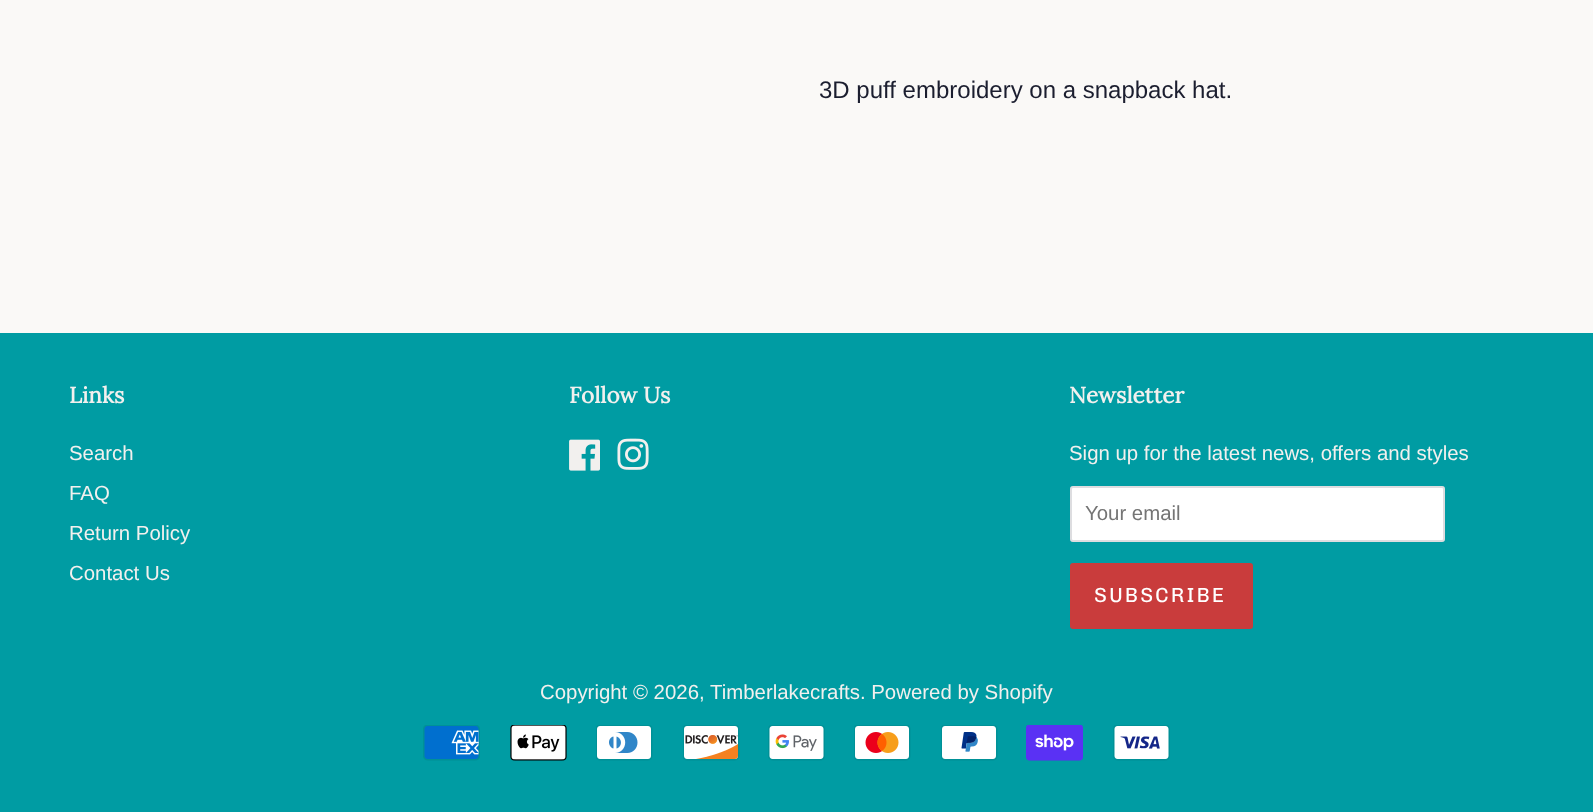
<!DOCTYPE html>
<meta charset="utf-8">
<style>body { margin: 0 } canvas { display: block }</style>
<canvas id="canvas" width="1593" height="812"></canvas>
<img id="img1" src="images/1.png" hidden>
<img id="img2" src="images/2.png" hidden>
<img id="img3" src="images/3.png" hidden>
<img id="img4" src="images/4.png" hidden>
<img id="img5" src="images/5.png" hidden>
<img id="img6" src="images/6.png" hidden>
<img id="img7" src="images/7.png" hidden>
<img id="img8" src="images/8.png" hidden>
<img id="img9" src="images/9.png" hidden>
<img id="img10" src="images/10.png" hidden>
<img id="img11" src="images/11.png" hidden>
<script>
window.onload = function () {
    const canvas = document.getElementById('canvas');
    const context = canvas.getContext('2d');
    context.miterLimit = 4;
    context.fontKerning = 'normal';

    context.fillStyle = 'rgb(250, 249, 247)';
    context.fillRect(0, 0, 1593, 812);
    context.fillStyle = 'rgb(0, 156, 163)';
    context.fillRect(0, 333, 1593, 479);
    context.drawImage(document.getElementById('img1'), 569, 439, 31, 32);
    context.drawImage(document.getElementById('img2'), 617, 438, 32, 32);
    context.fillStyle = 'rgb(255, 255, 255)';
    context.beginPath();
    context.roundRect(1070, 486, 375, 56, 3);
    context.fill();
    context.beginPath();
    context.roundRect(1071, 487, 373, 54, 2);
    context.strokeStyle = 'rgba(27, 30, 47, 0.15)';
    context.lineWidth = 2;
    context.stroke();
    context.fillStyle = 'rgb(201, 60, 60)';
    context.beginPath();
    context.roundRect(1070, 563, 183, 66, 3);
    context.fill();
    context.drawImage(document.getElementById('img3'), 423, 725, 57, 36);
    context.drawImage(document.getElementById('img4'), 510, 725, 57, 36);
    context.drawImage(document.getElementById('img5'), 596, 725, 57, 36);
    context.drawImage(document.getElementById('img6'), 683, 725, 57, 36);
    context.drawImage(document.getElementById('img7'), 768, 725, 57, 36);
    context.drawImage(document.getElementById('img8'), 854, 725, 57, 36);
    context.drawImage(document.getElementById('img9'), 941, 725, 57, 36);
    context.drawImage(document.getElementById('img10'), 1026, 725, 57, 36);
    context.drawImage(document.getElementById('img11'), 1113, 725, 57, 36);
    context.font = '24px Liberation Sans';
    context.fillStyle = 'rgb(27, 30, 47)';
    context.fillText('3D puff embroidery on a snapback hat.', 819, 98);
    context.font = 'bold 22.5px Lora';
    context.fillStyle = 'rgb(242, 240, 238)';
    context.fillText('Links', 69, 403);
    context.font = '20.4px Liberation Sans';
    context.fillText('Search', 69, 460);
    context.fillText('FAQ', 69, 500);
    context.fillText('Return Policy', 69, 540);
    context.fillText('Contact Us', 69, 580);
    context.font = 'bold 22.5px Lora';
    context.fillText('Follow Us', 569, 403);
    context.fillText('Newsletter', 1069, 403);
    context.font = '20.4px Liberation Sans';
    context.fillText('Sign up for the latest news, offers and styles', 1069, 460);
    context.fillStyle = 'rgb(117, 117, 117)';
    context.fillText('Your email', 1085, 520);
    context.letterSpacing = '2px';
    context.font = '20.4px Chivo';
    context.fillStyle = 'rgb(255, 255, 255)';
    context.fillText('SUBSCRIBE', 1094, 602);
    context.letterSpacing = '0px';
    context.font = '20.4px Liberation Sans';
    context.fillStyle = 'rgb(242, 240, 238)';
    context.fillText('Copyright © 2026,', 540, 699);
    context.fillText('Timberlakecrafts. Powered by Shopify', 710, 699);
};
</script>
